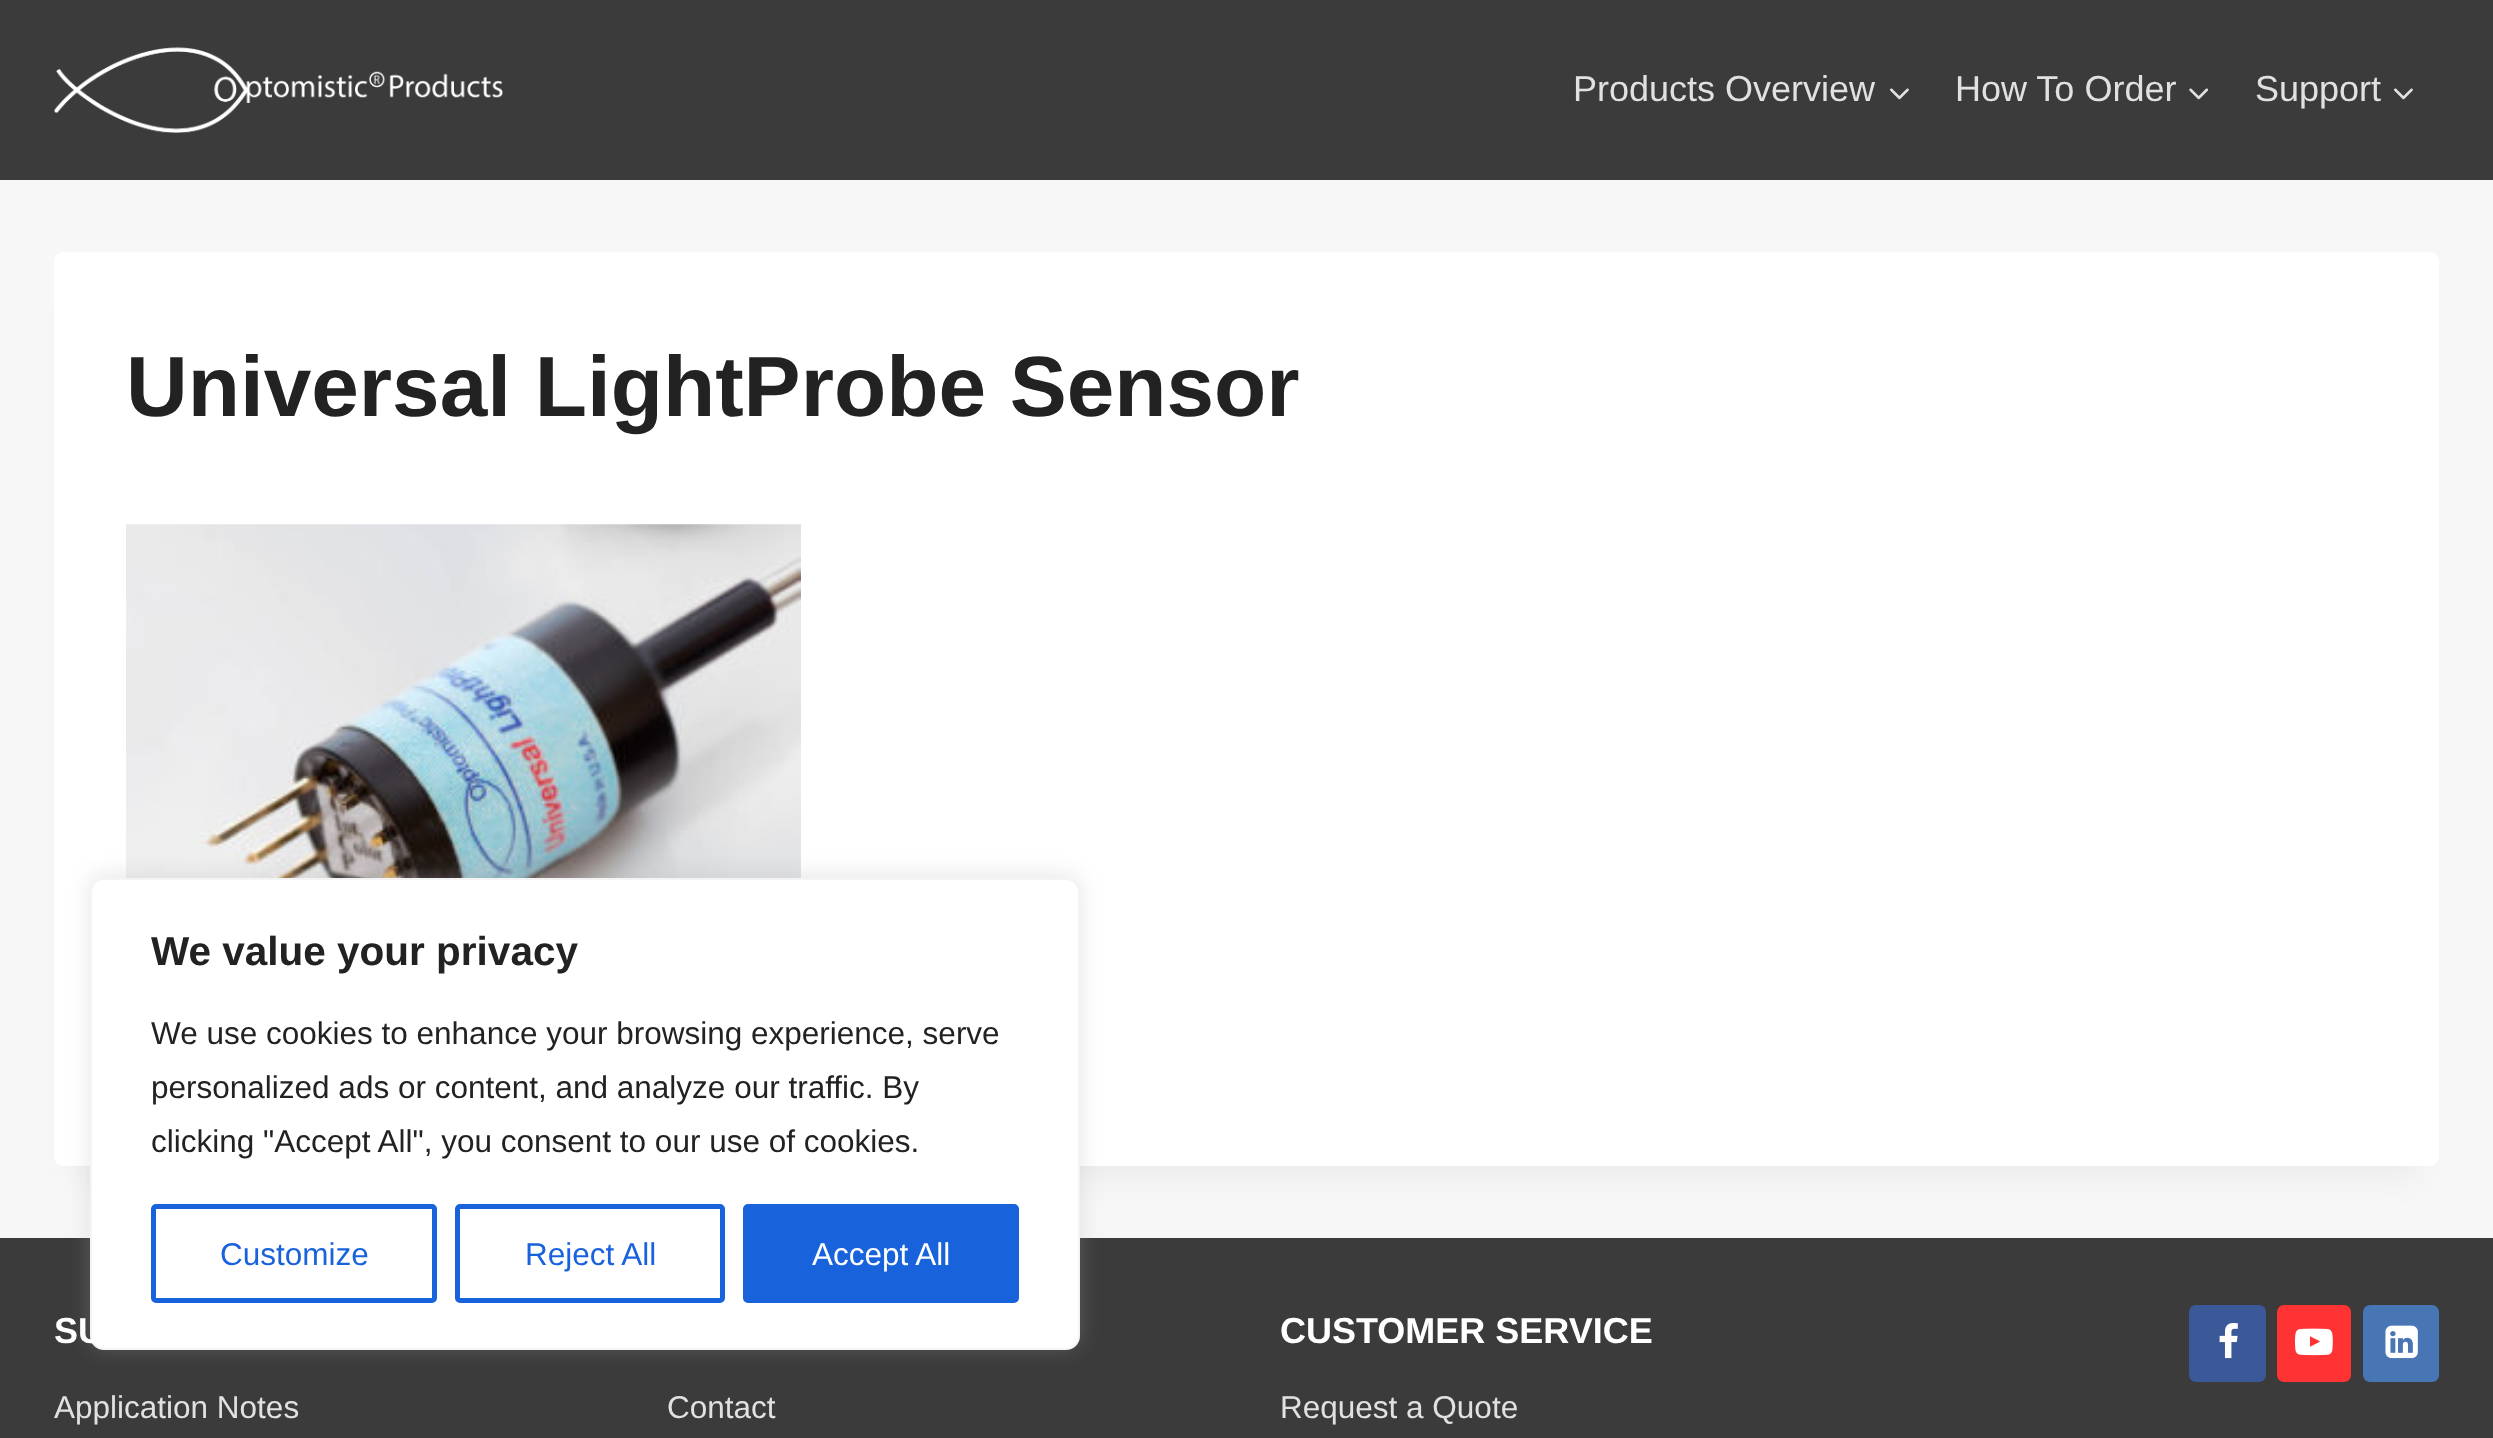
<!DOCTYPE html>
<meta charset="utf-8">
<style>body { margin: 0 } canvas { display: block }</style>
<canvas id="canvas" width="2493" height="1438"></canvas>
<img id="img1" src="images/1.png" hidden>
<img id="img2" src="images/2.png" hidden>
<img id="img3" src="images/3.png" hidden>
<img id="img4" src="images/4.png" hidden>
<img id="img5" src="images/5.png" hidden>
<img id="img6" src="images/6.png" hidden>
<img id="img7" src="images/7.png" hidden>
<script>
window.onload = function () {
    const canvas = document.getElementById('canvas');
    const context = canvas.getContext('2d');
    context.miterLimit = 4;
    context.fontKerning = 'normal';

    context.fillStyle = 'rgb(247, 247, 247)';
    context.fillRect(0, 0, 2493, 1438);
    context.fillStyle = 'rgb(59, 59, 59)';
    context.fillRect(0, 0, 2493, 180);
    context.drawImage(document.getElementById('img1'), 54, 47, 449, 86);
    context.drawImage(document.getElementById('img2'), 1890, 88, 19, 12);
    context.drawImage(document.getElementById('img3'), 2189, 88, 20, 12);
    context.drawImage(document.getElementById('img2'), 2394, 88, 19, 12);
    context.fillStyle = 'rgba(0, 0, 0, 0.05)';
    context.filter = 'blur(17px)';
    context.beginPath();
    context.rect(77, 308, 2340, 869);
    context.fill();
    context.filter = 'none';
    context.fillStyle = 'rgb(255, 255, 255)';
    context.beginPath();
    context.roundRect(54, 252, 2385, 914, 9);
    context.fill();
    context.drawImage(document.getElementById('img4'), 126, 524, 675, 354);
    context.fillStyle = 'rgb(59, 59, 59)';
    context.fillRect(0, 1238, 2493, 200);
    context.fillStyle = 'rgb(59, 89, 152)';
    context.beginPath();
    context.roundRect(2189, 1305, 77, 77, 7);
    context.fill();
    context.drawImage(document.getElementById('img5'), 2219, 1323, 19, 36);
    context.fillStyle = 'rgb(255, 51, 51)';
    context.beginPath();
    context.roundRect(2277, 1305, 74, 77, 7);
    context.fill();
    context.drawImage(document.getElementById('img6'), 2295, 1328, 38, 28);
    context.fillStyle = 'rgb(72, 117, 180)';
    context.beginPath();
    context.roundRect(2363, 1305, 76, 77, 7);
    context.fill();
    context.drawImage(document.getElementById('img7'), 2385, 1325, 33, 34);
    context.fillStyle = 'rgba(172, 171, 171, 0.3)';
    context.filter = 'blur(11px)';
    context.beginPath();
    context.roundRect(90, 875, 990, 473, 14);
    context.fill();
    context.filter = 'none';
    context.fillStyle = 'rgb(255, 255, 255)';
    context.beginPath();
    context.roundRect(91, 879, 988, 470, 13);
    context.fill();
    context.strokeStyle = 'rgb(244, 244, 244)';
    context.lineWidth = 2;
    context.stroke();
    context.beginPath();
    context.roundRect(153.5, 1206.5, 281, 94, 2.5);
    context.strokeStyle = 'rgb(24, 99, 220)';
    context.lineWidth = 5;
    context.stroke();
    context.beginPath();
    context.roundRect(457.5, 1206.5, 265, 94, 2.5);
    context.stroke();
    context.fillStyle = 'rgb(24, 99, 220)';
    context.beginPath();
    context.roundRect(745.5, 1206.5, 271, 94, 2.5);
    context.fill();
    context.stroke();
    context.font = '36px Liberation Sans';
    context.fillStyle = 'rgb(225, 225, 225)';
    context.fillText('Products Overview', 1573, 101);
    context.fillText('How To Order', 1955, 101);
    context.fillText('Support', 2255, 101);
    context.font = 'bold 85.5px Liberation Sans';
    context.fillStyle = 'rgb(34, 34, 34)';
    context.fillText('Universal LightProbe Sensor', 126, 416);
    context.font = 'bold 36px Liberation Sans';
    context.fillStyle = 'rgb(255, 255, 255)';
    context.fillText('SU', 54, 1343);
    context.font = '31.5px Liberation Sans';
    context.fillStyle = 'rgb(225, 225, 225)';
    context.fillText('Application Notes', 54, 1418);
    context.fillText('Contact', 667, 1418);
    context.font = 'bold 36px Liberation Sans';
    context.fillStyle = 'rgb(255, 255, 255)';
    context.fillText('CUSTOMER SERVICE', 1280, 1343);
    context.font = '31.5px Liberation Sans';
    context.fillStyle = 'rgb(225, 225, 225)';
    context.fillText('Request a Quote', 1280, 1418);
    context.font = 'bold 40.5px Liberation Sans';
    context.fillStyle = 'rgb(34, 34, 34)';
    context.fillText('We value your privacy', 151, 965);
    context.font = '31.5px Liberation Sans';
    context.fillText('We use cookies to enhance your browsing experience, serve', 151, 1044);
    context.fillText('personalized ads or content, and analyze our traffic. By', 151, 1098);
    context.fillText('clicking "Accept All", you consent to our use of cookies.', 151, 1152);
    context.fillStyle = 'rgb(24, 99, 220)';
    context.fillText('Customize', 220, 1265);
    context.fillText('Reject All', 525, 1265);
    context.fillStyle = 'rgb(255, 255, 255)';
    context.fillText('Accept All', 812, 1265);
};
</script>
